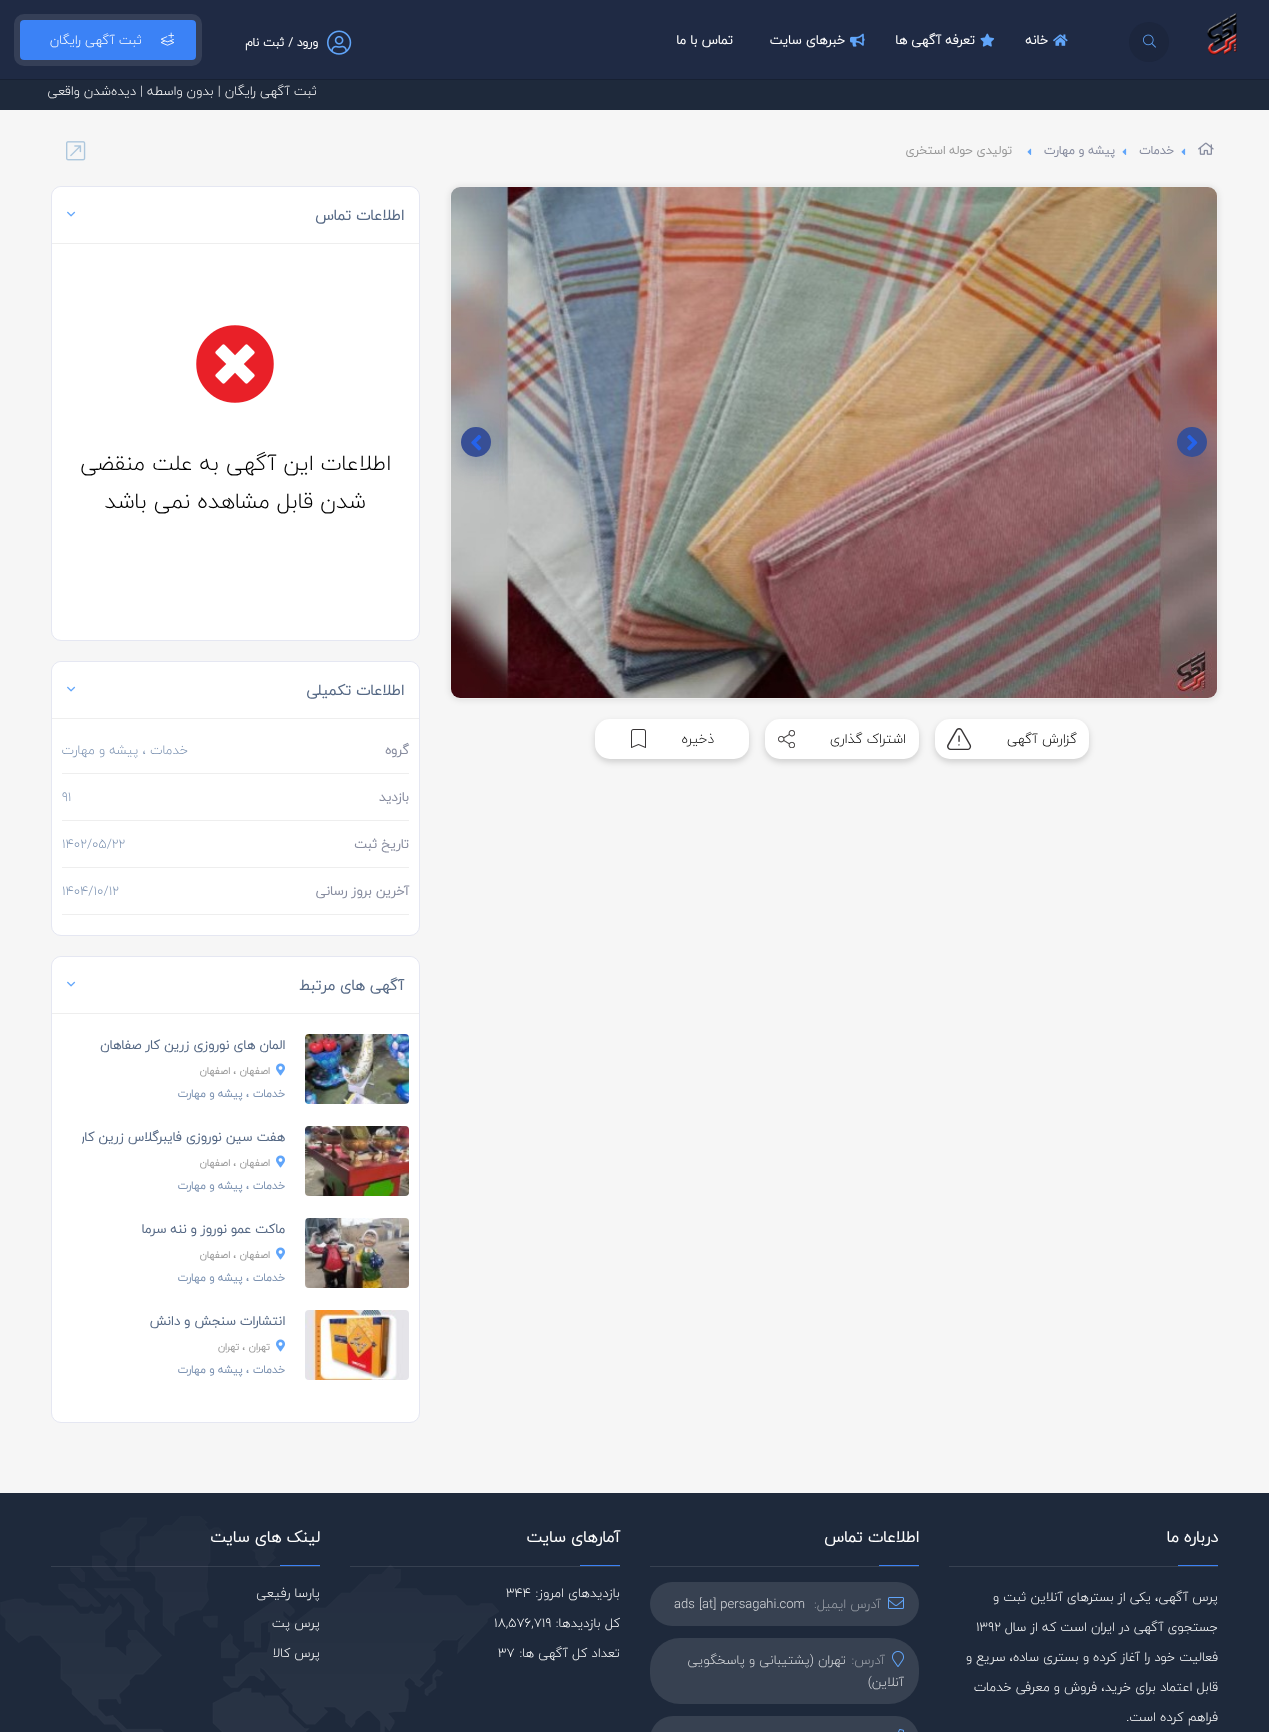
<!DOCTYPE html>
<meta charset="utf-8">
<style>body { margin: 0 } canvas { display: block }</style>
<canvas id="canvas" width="1269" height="1732"></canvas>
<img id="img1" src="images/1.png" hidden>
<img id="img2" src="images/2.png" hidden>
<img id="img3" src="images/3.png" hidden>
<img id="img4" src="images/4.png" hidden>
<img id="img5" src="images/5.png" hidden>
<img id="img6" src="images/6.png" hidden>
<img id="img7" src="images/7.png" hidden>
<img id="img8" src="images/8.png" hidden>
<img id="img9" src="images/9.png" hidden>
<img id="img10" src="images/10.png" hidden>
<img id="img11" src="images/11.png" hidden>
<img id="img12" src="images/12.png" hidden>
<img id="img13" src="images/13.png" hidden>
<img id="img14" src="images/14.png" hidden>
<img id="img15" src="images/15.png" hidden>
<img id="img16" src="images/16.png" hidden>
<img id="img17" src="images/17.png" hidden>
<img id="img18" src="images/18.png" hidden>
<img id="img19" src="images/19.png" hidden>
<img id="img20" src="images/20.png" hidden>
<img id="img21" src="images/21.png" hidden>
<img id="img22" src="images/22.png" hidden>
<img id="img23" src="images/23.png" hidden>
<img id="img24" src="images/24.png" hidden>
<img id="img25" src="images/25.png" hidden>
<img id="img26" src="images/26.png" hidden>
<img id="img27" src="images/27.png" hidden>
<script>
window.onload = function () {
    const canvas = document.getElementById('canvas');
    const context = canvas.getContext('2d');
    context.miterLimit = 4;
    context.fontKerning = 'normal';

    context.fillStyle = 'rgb(30, 41, 59)';
    context.fillRect(0, 0, 1269, 1732);
    context.fillStyle = 'rgb(31, 42, 68)';
    context.fillRect(0, 0, 1269, 79);
    context.fillStyle = 'rgb(23, 32, 51)';
    context.fillRect(0, 79, 1269, 1);
    context.drawImage(document.getElementById('img1'), 1207, 13, 30, 42);
    context.fillStyle = 'rgb(28, 38, 61)';
    context.beginPath();
    context.arc(1149, 42, 20, 0, 2 * Math.PI);
    context.fill();
    context.drawImage(document.getElementById('img2'), 1143, 34, 13, 14);
    context.drawImage(document.getElementById('img3'), 1053, 34, 15, 12);
    context.drawImage(document.getElementById('img4'), 980, 33, 15, 14);
    context.drawImage(document.getElementById('img5'), 850, 33, 15, 14);
    context.drawImage(document.getElementById('img6'), 327, 30, 25, 25);
    context.beginPath();
    context.roundRect(17, 17, 182, 46, 7);
    context.strokeStyle = 'rgb(53, 63, 87)';
    context.lineWidth = 6;
    context.stroke();
    context.fillStyle = 'rgb(59, 130, 246)';
    context.beginPath();
    context.roundRect(20, 20, 176, 40, 4);
    context.fill();
    context.drawImage(document.getElementById('img7'), 161, 32, 13, 14);
    context.fillStyle = 'rgb(246, 246, 246)';
    context.fillRect(0, 110, 1269, 1383);
    context.drawImage(document.getElementById('img8'), 1198, 142, 16, 13);
    context.drawImage(document.getElementById('img9'), 1181, 148, 5, 7);
    context.drawImage(document.getElementById('img9'), 1122, 148, 5, 7);
    context.drawImage(document.getElementById('img9'), 1027, 148, 5, 7);
    context.drawImage(document.getElementById('img10'), 66, 141, 20, 20);
    context.fillStyle = 'rgba(0, 0, 0, 0.1)';
    context.filter = 'blur(3px)';
    context.beginPath();
    context.roundRect(450, 187, 768, 513, 10);
    context.fill();
    context.filter = 'none';
    context.beginPath();
    context.roundRect(450.5, 186.5, 767, 512, 9.5);
    context.strokeStyle = 'rgb(238, 238, 238)';
    context.lineWidth = 1;
    context.stroke();
    context.fillStyle = 'rgb(255, 255, 255)';
    context.beginPath();
    context.roundRect(451, 187, 766, 511, 9);
    context.fill();
    context.drawImage(document.getElementById('img11'), 451, 187, 766, 511);
    context.save();
    context.beginPath();
    context.roundRect(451, 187, 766, 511, 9);
    context.clip();
    context.fillStyle = 'rgba(58, 87, 135, 0.45)';
    context.filter = 'blur(13px)';
    context.beginPath();
    context.roundRect(1177, 436, 30, 30, 15);
    context.fill();
    context.filter = 'none';
    context.restore();
    context.fillStyle = 'rgb(56, 79, 149)';
    context.beginPath();
    context.arc(1192, 442, 15, 0, 2 * Math.PI);
    context.fill();
    context.drawImage(document.getElementById('img12'), 1187, 434, 11, 17);
    context.save();
    context.beginPath();
    context.roundRect(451, 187, 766, 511, 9);
    context.clip();
    context.fillStyle = 'rgba(58, 87, 135, 0.45)';
    context.filter = 'blur(13px)';
    context.beginPath();
    context.roundRect(461, 436, 30, 30, 15);
    context.fill();
    context.filter = 'none';
    context.restore();
    context.beginPath();
    context.arc(476, 442, 15, 0, 2 * Math.PI);
    context.fill();
    context.drawImage(document.getElementById('img13'), 471, 434, 11, 17);
    context.fillStyle = 'rgba(0, 0, 0, 0.16)';
    context.filter = 'blur(3px)';
    context.beginPath();
    context.roundRect(935, 722, 154, 40, 15);
    context.fill();
    context.filter = 'none';
    context.fillStyle = 'rgb(255, 255, 255)';
    context.beginPath();
    context.roundRect(935, 719, 154, 40, 15);
    context.fill();
    context.drawImage(document.getElementById('img14'), 947, 728, 25, 22);
    context.fillStyle = 'rgba(0, 0, 0, 0.16)';
    context.filter = 'blur(3px)';
    context.beginPath();
    context.roundRect(765, 722, 154, 40, 15);
    context.fill();
    context.filter = 'none';
    context.fillStyle = 'rgb(255, 255, 255)';
    context.beginPath();
    context.roundRect(765, 719, 154, 40, 15);
    context.fill();
    context.drawImage(document.getElementById('img15'), 778, 730, 17, 18);
    context.fillStyle = 'rgba(0, 0, 0, 0.16)';
    context.filter = 'blur(3px)';
    context.beginPath();
    context.roundRect(595, 722, 154, 40, 15);
    context.fill();
    context.filter = 'none';
    context.fillStyle = 'rgb(255, 255, 255)';
    context.beginPath();
    context.roundRect(595, 719, 154, 40, 15);
    context.fill();
    context.drawImage(document.getElementById('img16'), 631, 729, 15, 19);
    context.beginPath();
    context.roundRect(51.5, 186.5, 368, 454, 9.5);
    context.fill();
    context.strokeStyle = 'rgb(229, 231, 242)';
    context.stroke();
    context.beginPath();
    context.roundRect(52, 187, 367, 57, [10, 10, 0, 0]);
    context.fill();
    context.fillStyle = 'rgb(238, 238, 238)';
    context.fillRect(52, 243, 367, 1);
    context.drawImage(document.getElementById('img17'), 67, 211, 9, 6);
    context.drawImage(document.getElementById('img18'), 196, 325, 78, 78);
    context.fillStyle = 'rgb(255, 255, 255)';
    context.beginPath();
    context.roundRect(51.5, 661.5, 368, 274, 9.5);
    context.fill();
    context.stroke();
    context.beginPath();
    context.roundRect(52, 662, 367, 57, [10, 10, 0, 0]);
    context.fill();
    context.fillStyle = 'rgb(238, 238, 238)';
    context.fillRect(52, 718, 367, 1);
    context.drawImage(document.getElementById('img17'), 67, 686, 9, 6);
    context.fillRect(62, 773, 347, 1);
    context.fillRect(62, 820, 347, 1);
    context.fillRect(62, 867, 347, 1);
    context.fillRect(62, 914, 347, 1);
    context.fillStyle = 'rgb(255, 255, 255)';
    context.beginPath();
    context.roundRect(51.5, 956.5, 368, 466, 9.5);
    context.fill();
    context.stroke();
    context.beginPath();
    context.roundRect(52, 957, 367, 57, [10, 10, 0, 0]);
    context.fill();
    context.fillStyle = 'rgb(238, 238, 238)';
    context.fillRect(52, 1013, 367, 1);
    context.drawImage(document.getElementById('img17'), 67, 981, 9, 6);
    context.drawImage(document.getElementById('img19'), 305, 1034, 104, 70);
    context.drawImage(document.getElementById('img20'), 276, 1063, 9, 13);
    context.drawImage(document.getElementById('img21'), 305, 1126, 104, 70);
    context.drawImage(document.getElementById('img20'), 276, 1155, 9, 13);
    context.drawImage(document.getElementById('img22'), 305, 1218, 104, 70);
    context.drawImage(document.getElementById('img20'), 276, 1247, 9, 13);
    context.drawImage(document.getElementById('img23'), 305, 1310, 104, 70);
    context.drawImage(document.getElementById('img20'), 276, 1339, 9, 13);
    context.drawImage(document.getElementById('img24'), 0, 1516, 499, 216);
    context.fillStyle = 'rgb(55, 65, 81)';
    context.fillRect(949, 1566, 269, 1);
    context.fillStyle = 'rgb(59, 130, 246)';
    context.fillRect(1178, 1565, 40, 1);
    context.fillStyle = 'rgb(55, 65, 81)';
    context.fillRect(650, 1566, 269, 1);
    context.fillStyle = 'rgb(59, 130, 246)';
    context.fillRect(879, 1565, 40, 1);
    context.fillStyle = 'rgb(55, 65, 81)';
    context.beginPath();
    context.roundRect(650, 1582, 269, 44, 22);
    context.fill();
    context.drawImage(document.getElementById('img25'), 888, 1597, 16, 12);
    context.beginPath();
    context.roundRect(650, 1638, 269, 66, 30);
    context.fill();
    context.drawImage(document.getElementById('img26'), 892, 1651, 12, 16);
    context.beginPath();
    context.roundRect(650, 1716, 269, 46, 30);
    context.fill();
    context.drawImage(document.getElementById('img27'), 898, 1729, 6, 3);
    context.fillStyle = 'rgba(255, 255, 255, 0.11)';
    context.fillRect(350, 1566, 270, 1);
    context.fillStyle = 'rgb(59, 130, 246)';
    context.fillRect(580, 1565, 40, 1);
    context.fillStyle = 'rgba(255, 255, 255, 0.11)';
    context.fillRect(51, 1566, 269, 1);
    context.fillStyle = 'rgb(59, 130, 246)';
    context.fillRect(280, 1565, 40, 1);
    context.direction = 'rtl';
    context.font = 'bold 13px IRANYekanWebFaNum';
    context.fillStyle = 'rgb(255, 255, 255)';
    context.fillText('خانه', 1048, 44);
    context.fillText('تعرفه آگهی ها', 975, 44);
    context.fillText('خبرهای سایت', 845, 44);
    context.fillText('تماس با ما', 733, 44);
    context.font = 'bold 12px IRANYekanWebFaNum';
    context.fillText('ورود / ثبت نام', 318, 46);
    context.font = '300 13px IRANYekanWebFaNum';
    context.fillText('ثبت آگهی رایگان', 142, 44);
    context.fillText('ثبت آگهی رایگان | بدون واسطه | دیده‌شدن واقعی', 317, 95);
    context.font = 'bold 12px IRANYekanWebFaNum';
    context.fillStyle = 'rgb(135, 140, 159)';
    context.fillText('خدمات', 1174, 154);
    context.fillText('پیشه و مهارت', 1115, 154);
    context.fillStyle = 'rgb(153, 153, 153)';
    context.fillText('تولیدی حوله استخری', 1012, 154);
    context.font = '300 13.5px IRANYekanWebFaNum';
    context.fillStyle = 'rgb(0, 0, 0)';
    context.fillText('گزارش آگهی', 1077, 743);
    context.fillText('اشتراک گذاری', 906, 743);
    context.fillText('ذخیره', 714, 743);
    context.font = 'bold 15px IRANYekanWebFaNum';
    context.fillStyle = 'rgb(86, 105, 133)';
    context.fillText('اطلاعات تماس', 404, 220);
    context.font = '300 22px IRANYekanWebFaNum';
    context.fillStyle = 'rgb(0, 0, 0)';
    context.fillText('اطلاعات این آگهی به علت منقضی', 391, 470);
    context.fillText('شدن قابل مشاهده نمی باشد', 366, 508);
    context.font = 'bold 15px IRANYekanWebFaNum';
    context.fillStyle = 'rgb(86, 105, 133)';
    context.fillText('اطلاعات تکمیلی', 404, 695);
    context.font = 'bold 13px IRANYekanWebFaNum';
    context.fillStyle = 'rgb(135, 140, 159)';
    context.fillText('گروه', 409, 754);
    context.font = '300 13px IRANYekanWebFaNum';
    context.fillStyle = 'rgb(125, 147, 178)';
    context.fillText('خدمات', 188, 754);
    context.fillText('، پیشه و مهارت', 146, 754);
    context.font = 'bold 13px IRANYekanWebFaNum';
    context.fillStyle = 'rgb(135, 140, 159)';
    context.fillText('بازدید', 409, 801);
    context.direction = 'ltr';
    context.font = '300 13px IRANYekanWebFaNum';
    context.fillStyle = 'rgb(125, 147, 178)';
    context.fillText('91', 62, 801);
    context.direction = 'rtl';
    context.font = 'bold 13px IRANYekanWebFaNum';
    context.fillStyle = 'rgb(135, 140, 159)';
    context.fillText('تاریخ ثبت', 409, 848);
    context.direction = 'ltr';
    context.font = '300 13px IRANYekanWebFaNum';
    context.fillStyle = 'rgb(125, 147, 178)';
    context.fillText('1402/05/22', 62, 848);
    context.direction = 'rtl';
    context.font = 'bold 13px IRANYekanWebFaNum';
    context.fillStyle = 'rgb(135, 140, 159)';
    context.fillText('آخرین بروز رسانی', 409, 895);
    context.direction = 'ltr';
    context.font = '300 13px IRANYekanWebFaNum';
    context.fillStyle = 'rgb(125, 147, 178)';
    context.fillText('1404/10/12', 62, 895);
    context.direction = 'rtl';
    context.font = 'bold 15px IRANYekanWebFaNum';
    context.fillStyle = 'rgb(86, 105, 133)';
    context.fillText('آگهی های مرتبط', 404, 990);
    context.font = 'bold 13px IRANYekanWebFaNum';
    context.fillText('المان های نوروزی زرین کار صفاهان', 285, 1049);
    context.font = 'bold 10px IRANYekanWebFaNum';
    context.fillStyle = 'rgb(153, 153, 153)';
    context.fillText('اصفهان', 270, 1074);
    context.fillText('، اصفهان', 236, 1074);
    context.font = 'bold 11px IRANYekanWebFaNum';
    context.fillStyle = 'rgb(125, 147, 178)';
    context.fillText('خدمات', 285, 1097);
    context.fillText('، پیشه و مهارت', 249, 1097);
    context.save();
    context.beginPath();
    context.rect(82, 1126, 203, 24);
    context.clip();
    context.font = 'bold 13px IRANYekanWebFaNum';
    context.fillStyle = 'rgb(86, 105, 133)';
    context.fillText('هفت سین نوروزی فایبرگلاس زرین کار', 285, 1141);
    context.restore();
    context.font = 'bold 10px IRANYekanWebFaNum';
    context.fillStyle = 'rgb(153, 153, 153)';
    context.fillText('اصفهان', 270, 1166);
    context.fillText('، اصفهان', 236, 1166);
    context.font = 'bold 11px IRANYekanWebFaNum';
    context.fillStyle = 'rgb(125, 147, 178)';
    context.fillText('خدمات', 285, 1189);
    context.fillText('، پیشه و مهارت', 249, 1189);
    context.font = 'bold 13px IRANYekanWebFaNum';
    context.fillStyle = 'rgb(86, 105, 133)';
    context.fillText('ماکت عمو نوروز و ننه سرما', 285, 1233);
    context.font = 'bold 10px IRANYekanWebFaNum';
    context.fillStyle = 'rgb(153, 153, 153)';
    context.fillText('اصفهان', 270, 1258);
    context.fillText('، اصفهان', 236, 1258);
    context.font = 'bold 11px IRANYekanWebFaNum';
    context.fillStyle = 'rgb(125, 147, 178)';
    context.fillText('خدمات', 285, 1281);
    context.fillText('، پیشه و مهارت', 249, 1281);
    context.font = 'bold 13px IRANYekanWebFaNum';
    context.fillStyle = 'rgb(86, 105, 133)';
    context.fillText('انتشارات سنجش و دانش', 285, 1325);
    context.font = 'bold 10px IRANYekanWebFaNum';
    context.fillStyle = 'rgb(153, 153, 153)';
    context.fillText('تهران', 270, 1350);
    context.fillText('، تهران', 245, 1350);
    context.font = 'bold 11px IRANYekanWebFaNum';
    context.fillStyle = 'rgb(125, 147, 178)';
    context.fillText('خدمات', 285, 1373);
    context.fillText('، پیشه و مهارت', 249, 1373);
    context.font = 'bold 16px IRANYekanWebFaNum';
    context.fillStyle = 'rgb(255, 255, 255)';
    context.fillText('درباره ما', 1218, 1542);
    context.font = '300 13px IRANYekanWebFaNum';
    context.fillText('پرس آگهی، یکی از بسترهای آنلاین ثبت و', 1218, 1601);
    context.fillText('جستجوی آگهی در ایران است که از سال', 1218, 1631);
    context.direction = 'ltr';
    context.fillText('۱۳۹۲', 976, 1631);
    context.direction = 'rtl';
    context.fillText('فعالیت خود را آغاز کرده و بستری ساده، سریع و', 1218, 1661);
    context.fillText('قابل اعتماد برای خرید، فروش و معرفی خدمات', 1218, 1691);
    context.fillText('فراهم کرده است.', 1218, 1721);
    context.font = 'bold 16px IRANYekanWebFaNum';
    context.fillText('اطلاعات تماس', 919, 1542);
    context.font = '300 13px IRANYekanWebFaNum';
    context.fillStyle = 'rgb(157, 162, 170)';
    context.fillText('آدرس ایمیل:', 881, 1608);
    context.direction = 'ltr';
    context.fillStyle = 'rgb(217, 219, 222)';
    context.fillText('ads [at] persagahi.com', 674, 1608);
    context.direction = 'rtl';
    context.fillStyle = 'rgb(157, 162, 170)';
    context.fillText('آدرس:', 885, 1664);
    context.fillStyle = 'rgb(217, 219, 222)';
    context.fillText('تهران (پشتیبانی و پاسخگویی', 846, 1664);
    context.fillText('آنلاین)', 904, 1686);
    context.font = 'bold 16px IRANYekanWebFaNum';
    context.fillStyle = 'rgb(255, 255, 255)';
    context.fillText('آمارهای سایت', 620, 1542);
    context.font = '300 13px IRANYekanWebFaNum';
    context.fillText('بازدیدهای امروز:', 620, 1597);
    context.direction = 'ltr';
    context.fillText('344', 506, 1597);
    context.direction = 'rtl';
    context.fillText('کل بازدیدها:', 620, 1627);
    context.direction = 'ltr';
    context.fillText('18,576,719', 494, 1627);
    context.direction = 'rtl';
    context.fillText('تعداد کل آگهی ها:', 620, 1657);
    context.direction = 'ltr';
    context.fillText('37', 498, 1657);
    context.direction = 'rtl';
    context.font = 'bold 16px IRANYekanWebFaNum';
    context.fillText('لینک های سایت', 320, 1542);
    context.font = '300 13px IRANYekanWebFaNum';
    context.fillText('پارسا رفیعی', 320, 1597);
    context.fillText('پرس پت', 320, 1627);
    context.fillText('پرس کالا', 320, 1657);
};
</script>
